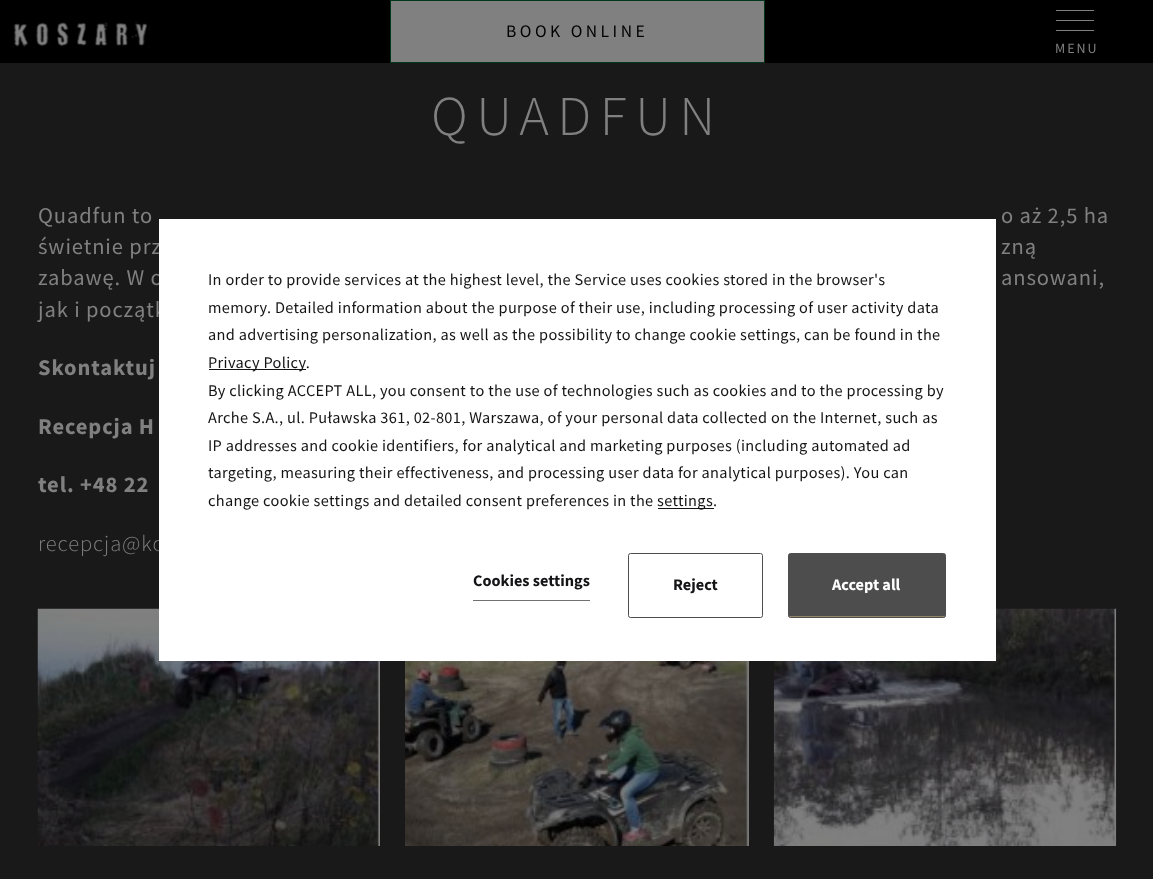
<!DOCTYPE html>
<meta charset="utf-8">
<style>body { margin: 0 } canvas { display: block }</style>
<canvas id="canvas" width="1153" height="879"></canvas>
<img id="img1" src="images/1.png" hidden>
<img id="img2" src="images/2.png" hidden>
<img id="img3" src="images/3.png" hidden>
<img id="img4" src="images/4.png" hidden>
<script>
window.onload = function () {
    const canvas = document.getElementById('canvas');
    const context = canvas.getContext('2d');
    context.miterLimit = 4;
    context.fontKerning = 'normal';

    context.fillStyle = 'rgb(26, 25, 25)';
    context.fillRect(0, 0, 1153, 879);
    context.fillStyle = 'rgb(0, 0, 0)';
    context.fillRect(0, 0, 1153, 63);
    context.drawImage(document.getElementById('img1'), 12, 21, 139, 27);
    context.fillStyle = 'rgb(128, 128, 128)';
    context.beginPath();
    context.rect(390.5, 0.5, 374, 62);
    context.fill();
    context.strokeStyle = 'rgb(2, 54, 28)';
    context.stroke();
    context.fillRect(1056, 10, 38, 1);
    context.fillRect(1056, 20, 38, 1);
    context.fillRect(1056, 30, 38, 1);
    context.drawImage(document.getElementById('img2'), 37, 608, 343, 238);
    context.fillStyle = 'rgb(115, 114, 112)';
    context.fillRect(748, 661, 1, 185);
    context.drawImage(document.getElementById('img3'), 405, 661, 344, 185);
    context.drawImage(document.getElementById('img4'), 773, 608, 344, 238);
    context.letterSpacing = '3.5px';
    context.font = '17.5px Source Sans Pro';
    context.fillStyle = 'rgb(0, 0, 0)';
    context.fillText('BOOK ONLINE', 506, 37);
    context.letterSpacing = '2px';
    context.font = '14px Source Sans Pro';
    context.fillStyle = 'rgb(128, 128, 128)';
    context.fillText('MENU', 1055, 53);
    context.letterSpacing = '8.5px';
    context.font = '300 56.25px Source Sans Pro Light';
    context.fillText('QUADFUN', 431, 135);
    context.letterSpacing = '0.9px';
    context.font = '22.5px Source Sans Pro';
    context.fillText('Quadfun to', 38, 223);
    context.fillText('o aż 2,5 ha', 1001, 223);
    context.fillText('świetnie prz', 38, 254);
    context.fillText('zną', 1001, 254);
    context.fillText('zabawę. W o', 38, 285);
    context.fillText('ansowani,', 1001, 285);
    context.fillText('jak i początk', 38, 317);
    context.font = 'bold 22.5px Source Sans Pro';
    context.fillText('Skontaktuj', 38, 375);
    context.fillText('Recepcja H', 38, 434);
    context.fillText('tel. +48 22', 38, 492);
    context.font = '300 22.5px Source Sans Pro Light';
    context.fillText('recepcja@ko', 38, 551);
    context.fillStyle = 'rgb(255, 255, 255)';
    context.fillRect(159, 219, 837, 442);
    context.letterSpacing = '0.35px';
    context.font = '16.25px Source Sans Pro';
    context.fillStyle = 'rgb(20, 20, 22)';
    context.fillText('In order to provide services at the highest level, the Service uses cookies stored in the browser\'s', 208, 285);
    context.fillText('memory. Detailed information about the purpose of their use, including processing of user activity data', 208, 313);
    context.fillText('and advertising personalization, as well as the possibility to change cookie settings, can be found in the', 208, 340);
    context.fillRect(209, 369, 97, 1);
    context.fillText('Privacy Policy.', 208, 368);
    context.fillText('By clicking ACCEPT ALL, you consent to the use of technologies such as cookies and to the processing by', 208, 396);
    context.fillText('Arche S.A., ul. Puławska 361, 02-801, Warszawa, of your personal data collected on the Internet, such as', 208, 423);
    context.fillText('IP addresses and cookie identifiers, for analytical and marketing purposes (including automated ad', 208, 451);
    context.fillText('targeting, measuring their effectiveness, and processing user data for analytical purposes). You can', 208, 478);
    context.fillText('change cookie settings and detailed consent preferences in the', 208, 506);
    context.fillRect(658, 508, 56, 1);
    context.fillText('settings.', 657, 506);
    context.letterSpacing = '0px';
    context.font = 'bold 16.25px Source Sans Pro';
    context.fillText('Cookies settings', 473, 586);
    context.fillStyle = 'rgb(113, 113, 113)';
    context.fillRect(473, 600, 117, 1);
    context.beginPath();
    context.roundRect(628.5, 553.5, 134, 64, 2);
    context.strokeStyle = 'rgb(77, 77, 77)';
    context.stroke();
    context.fillStyle = 'rgb(20, 20, 22)';
    context.fillText('Reject', 673, 590);
    context.fillStyle = 'rgb(147, 135, 103)';
    context.beginPath();
    context.roundRect(788.5, 553.5, 157, 64, 2);
    context.fill();
    context.stroke();
    context.fillStyle = 'rgb(77, 77, 77)';
    context.fillRect(789, 554, 156, 62);
    context.fillStyle = 'rgb(255, 255, 255)';
    context.fillText('Accept all', 832, 590);
};
</script>
